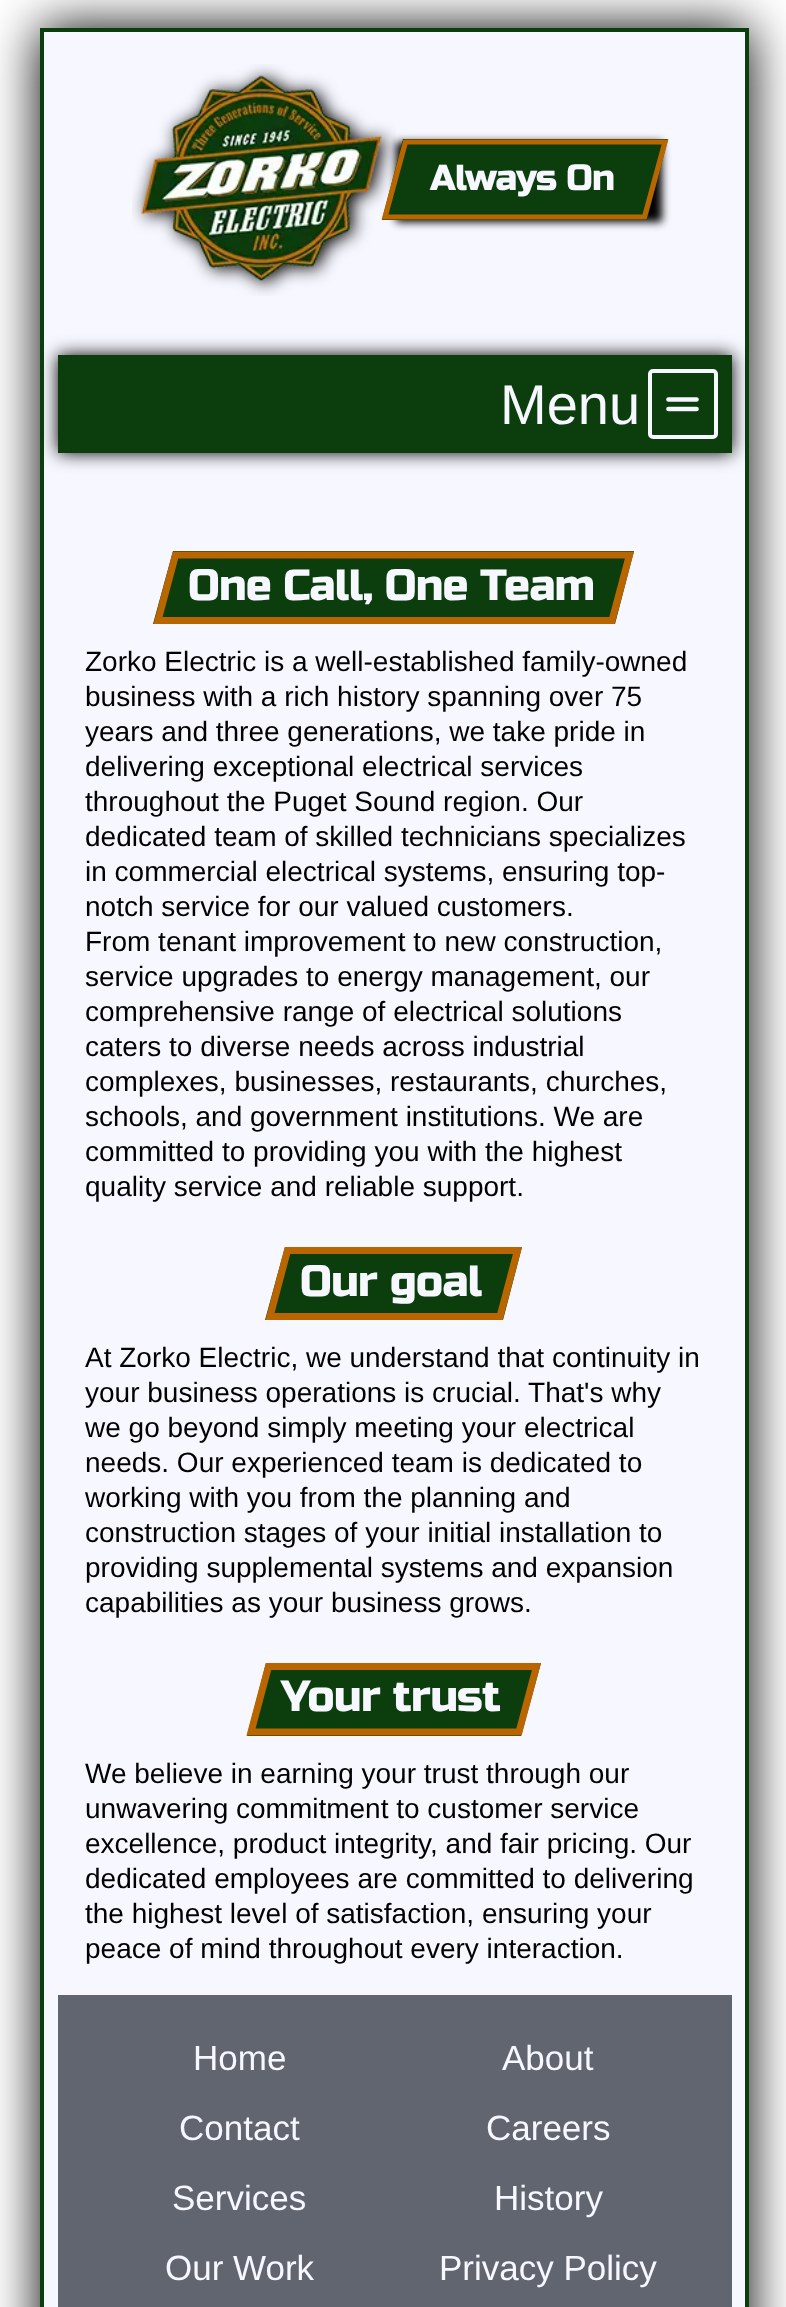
<!DOCTYPE html>
<meta charset="utf-8">
<style>body { margin: 0 } canvas { display: block }</style>
<canvas id="canvas" width="786" height="2307"></canvas>
<img id="img1" src="images/1.png" hidden>
<script>
window.onload = function () {
    const canvas = document.getElementById('canvas');
    const context = canvas.getContext('2d');
    context.miterLimit = 4;
    context.fontKerning = 'normal';

    context.fillStyle = 'rgb(255, 255, 255)';
    context.fillRect(0, 0, 786, 2307);
    context.fillStyle = 'rgb(0, 0, 0)';
    context.filter = 'blur(26px)';
    context.beginPath();
    context.rect(40, 28, 709, 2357);
    context.fill();
    context.filter = 'none';
    context.fillStyle = 'rgb(247, 247, 255)';
    context.beginPath();
    context.rect(42, 30, 705, 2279);
    context.fill();
    context.strokeStyle = 'rgb(11, 61, 13)';
    context.lineWidth = 4;
    context.stroke();
    context.drawImage(document.getElementById('img1'), 132, 64, 264, 232);
    context.fillStyle = 'rgb(0, 0, 0)';
    context.filter = 'blur(4px)';
    context.beginPath();
    context.rect(396, 142, 266, 80);
    context.fill();
    context.filter = 'none';
    context.fillStyle = 'rgb(11, 61, 13)';
    context.beginPath();
    context.moveTo(403, 139);
    context.lineTo(668, 139);
    context.lineTo(647, 220);
    context.lineTo(382, 220);
    context.closePath();
    context.fill();
    context.beginPath();
    context.moveTo(405.5, 142);
    context.lineTo(665, 142);
    context.lineTo(644.5, 217);
    context.lineTo(385, 217);
    context.closePath();
    context.strokeStyle = 'rgb(186, 102, 0)';
    context.lineWidth = 5.2;
    context.stroke();
    context.save();
    context.beginPath();
    context.rect(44, 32, 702, 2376);
    context.clip();
    context.fillStyle = 'rgb(0, 0, 0)';
    context.filter = 'blur(9px)';
    context.beginPath();
    context.rect(58, 355, 674, 98);
    context.fill();
    context.filter = 'none';
    context.restore();
    context.fillRect(58, 355, 674, 98);
    context.beginPath();
    context.roundRect(650, 371, 66, 66, 3);
    context.strokeStyle = 'rgb(247, 247, 255)';
    context.lineWidth = 4;
    context.stroke();
    context.beginPath();
    context.moveTo(668.5, 399.5);
    context.lineTo(696.5, 399.5);
    context.moveTo(696.5, 409);
    context.lineTo(668.5, 409);
    context.lineWidth = 4.7;
    context.lineCap = 'round';
    context.lineJoin = 'round';
    context.stroke();
    context.beginPath();
    context.moveTo(173, 551);
    context.lineTo(634, 551);
    context.lineTo(615, 624);
    context.lineTo(153, 624);
    context.closePath();
    context.fill();
    context.beginPath();
    context.moveTo(175.5, 555);
    context.lineTo(629.5, 555);
    context.lineTo(612, 620.5);
    context.lineTo(158, 620.5);
    context.closePath();
    context.strokeStyle = 'rgb(186, 102, 0)';
    context.lineWidth = 7;
    context.lineCap = 'butt';
    context.lineJoin = 'miter';
    context.stroke();
    context.beginPath();
    context.moveTo(285, 1247);
    context.lineTo(522, 1247);
    context.lineTo(503, 1320);
    context.lineTo(265, 1320);
    context.closePath();
    context.fill();
    context.beginPath();
    context.moveTo(287.5, 1250.5);
    context.lineTo(517.5, 1250.5);
    context.lineTo(500, 1316.5);
    context.lineTo(270, 1316.5);
    context.closePath();
    context.stroke();
    context.beginPath();
    context.moveTo(266, 1663);
    context.lineTo(541, 1663);
    context.lineTo(521, 1736);
    context.lineTo(247, 1736);
    context.closePath();
    context.fill();
    context.beginPath();
    context.moveTo(268.5, 1666.5);
    context.lineTo(536.5, 1666.5);
    context.lineTo(519, 1732);
    context.lineTo(251, 1732);
    context.closePath();
    context.stroke();
    context.fillStyle = 'rgb(96, 101, 111)';
    context.fillRect(58, 1995, 674, 312);
    context.letterSpacing = '-0.75px';
    context.font = '36.25px Russo One';
    context.fillStyle = 'rgb(247, 247, 255)';
    context.fillText('Always On', 430, 190);
    context.letterSpacing = '0px';
    context.font = '56px Liberation Sans';
    context.fillText('Menu', 500, 424);
    context.letterSpacing = '-0.75px';
    context.font = '43.5px Russo One';
    context.fillText('One Call, One Team', 188, 600);
    context.letterSpacing = '0px';
    context.font = '28px Liberation Sans';
    context.fillStyle = 'rgb(0, 0, 0)';
    context.fillText('Zorko Electric is a well-established family-owned', 85, 671);
    context.fillText('business with a rich history spanning over 75', 85, 706);
    context.fillText('years and three generations, we take pride in', 85, 741);
    context.fillText('delivering exceptional electrical services', 85, 776);
    context.fillText('throughout the Puget Sound region. Our', 85, 811);
    context.fillText('dedicated team of skilled technicians specializes', 85, 846);
    context.fillText('in commercial electrical systems, ensuring top-', 85, 881);
    context.fillText('notch service for our valued customers.', 85, 916);
    context.fillText('From tenant improvement to new construction,', 85, 951);
    context.fillText('service upgrades to energy management, our', 85, 986);
    context.fillText('comprehensive range of electrical solutions', 85, 1021);
    context.fillText('caters to diverse needs across industrial', 85, 1056);
    context.fillText('complexes, businesses, restaurants, churches,', 85, 1091);
    context.fillText('schools, and government institutions. We are', 85, 1126);
    context.fillText('committed to providing you with the highest', 85, 1161);
    context.fillText('quality service and reliable support.', 85, 1196);
    context.letterSpacing = '-0.75px';
    context.font = '43.5px Russo One';
    context.fillStyle = 'rgb(247, 247, 255)';
    context.fillText('Our goal', 300, 1296);
    context.letterSpacing = '0px';
    context.font = '28px Liberation Sans';
    context.fillStyle = 'rgb(0, 0, 0)';
    context.fillText('At Zorko Electric, we understand that continuity in', 85, 1367);
    context.fillText('your business operations is crucial. That\'s why', 85, 1402);
    context.fillText('we go beyond simply meeting your electrical', 85, 1437);
    context.fillText('needs. Our experienced team is dedicated to', 85, 1472);
    context.fillText('working with you from the planning and', 85, 1507);
    context.fillText('construction stages of your initial installation to', 85, 1542);
    context.fillText('providing supplemental systems and expansion', 85, 1577);
    context.fillText('capabilities as your business grows.', 85, 1612);
    context.letterSpacing = '-0.75px';
    context.font = '43.5px Russo One';
    context.fillStyle = 'rgb(247, 247, 255)';
    context.fillText('Your trust', 281, 1711);
    context.letterSpacing = '0px';
    context.font = '28px Liberation Sans';
    context.fillStyle = 'rgb(0, 0, 0)';
    context.fillText('We believe in earning your trust through our', 85, 1783);
    context.fillText('unwavering commitment to customer service', 85, 1818);
    context.fillText('excellence, product integrity, and fair pricing. Our', 85, 1853);
    context.fillText('dedicated employees are committed to delivering', 85, 1888);
    context.fillText('the highest level of satisfaction, ensuring your', 85, 1923);
    context.fillText('peace of mind throughout every interaction.', 85, 1958);
    context.font = '35px Liberation Sans';
    context.fillStyle = 'rgb(247, 247, 255)';
    context.fillText('Home', 193, 2070);
    context.fillText('About', 502, 2070);
    context.fillText('Contact', 179, 2140);
    context.fillText('Careers', 486, 2140);
    context.fillText('Services', 172, 2210);
    context.fillText('History', 494, 2210);
    context.fillText('Our Work', 165, 2280);
    context.fillText('Privacy Policy', 439, 2280);
};
</script>
